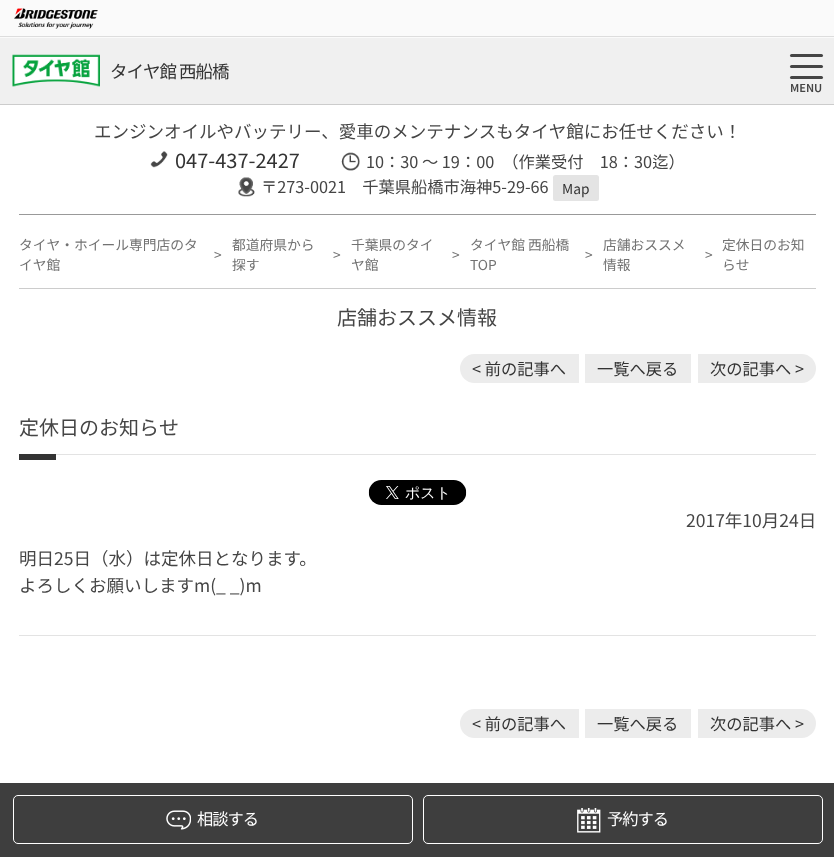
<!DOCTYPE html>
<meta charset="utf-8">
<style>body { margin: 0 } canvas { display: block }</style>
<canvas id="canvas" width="834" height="857"></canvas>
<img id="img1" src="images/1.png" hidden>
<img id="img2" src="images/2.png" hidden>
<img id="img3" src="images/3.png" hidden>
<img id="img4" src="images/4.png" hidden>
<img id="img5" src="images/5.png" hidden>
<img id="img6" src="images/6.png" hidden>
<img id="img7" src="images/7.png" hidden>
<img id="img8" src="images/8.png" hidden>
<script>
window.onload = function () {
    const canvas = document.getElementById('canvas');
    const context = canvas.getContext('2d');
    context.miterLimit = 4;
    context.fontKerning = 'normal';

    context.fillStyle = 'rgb(255, 255, 255)';
    context.fillRect(0, 0, 834, 857);
    context.fillStyle = 'rgb(250, 250, 250)';
    context.fillRect(0, 0, 834, 38);
    context.fillStyle = 'rgb(221, 221, 221)';
    context.fillRect(0, 36, 834, 1);
    context.drawImage(document.getElementById('img1'), 14, 8, 84, 21);
    context.fillStyle = 'rgb(240, 240, 240)';
    context.fillRect(0, 38, 834, 66);
    context.fillStyle = 'rgb(204, 204, 204)';
    context.fillRect(0, 104, 834, 1);
    context.drawImage(document.getElementById('img2'), 12, 54, 88, 33);
    context.fillStyle = 'rgb(69, 69, 69)';
    context.beginPath();
    context.roundRect(790, 54, 33, 3, 1.5);
    context.fill();
    context.beginPath();
    context.roundRect(790, 65, 33, 3, 1.5);
    context.fill();
    context.beginPath();
    context.roundRect(790, 76, 33, 3, 1.5);
    context.fill();
    context.fillStyle = 'rgb(153, 153, 153)';
    context.fillRect(19, 214, 797, 1);
    context.drawImage(document.getElementById('img3'), 150, 151, 18, 17);
    context.drawImage(document.getElementById('img4'), 341, 152, 19, 19);
    context.drawImage(document.getElementById('img5'), 238, 177, 17, 20);
    context.fillStyle = 'rgb(228, 228, 228)';
    context.beginPath();
    context.roundRect(553, 175, 46, 26, 2.5);
    context.fill();
    context.fillStyle = 'rgb(204, 204, 204)';
    context.fillRect(19, 288, 797, 1);
    context.fillStyle = 'rgb(236, 236, 236)';
    context.beginPath();
    context.roundRect(460, 354, 119, 29, [14.5, 0, 0, 14.5]);
    context.fill();
    context.fillRect(585, 354, 106, 29);
    context.beginPath();
    context.roundRect(698, 354, 118, 29, [0, 14.5, 14.5, 0]);
    context.fill();
    context.fillStyle = 'rgb(227, 227, 227)';
    context.fillRect(56, 454, 760, 1);
    context.fillStyle = 'rgb(51, 51, 51)';
    context.fillRect(19, 454, 37, 6);
    context.drawImage(document.getElementById('img6'), 368, 480, 99, 25);
    context.fillStyle = 'rgb(227, 227, 227)';
    context.fillRect(19, 635, 797, 1);
    context.fillStyle = 'rgb(236, 236, 236)';
    context.beginPath();
    context.roundRect(460, 709, 119, 29, [14.5, 0, 0, 14.5]);
    context.fill();
    context.fillRect(585, 709, 106, 29);
    context.beginPath();
    context.roundRect(698, 709, 118, 29, [0, 14.5, 14.5, 0]);
    context.fill();
    context.fillStyle = 'rgb(62, 62, 62)';
    context.fillRect(0, 783, 834, 74);
    context.beginPath();
    context.roundRect(13.5, 795.5, 399, 48, 4.5);
    context.strokeStyle = 'rgb(255, 255, 255)';
    context.stroke();
    context.drawImage(document.getElementById('img7'), 166, 810, 25, 20);
    context.beginPath();
    context.roundRect(423.5, 795.5, 399, 48, 4.5);
    context.stroke();
    context.drawImage(document.getElementById('img8'), 577, 808, 24, 25);
    context.letterSpacing = '-1px';
    context.font = '17.5px Noto Sans JP';
    context.fillStyle = 'rgb(51, 51, 51)';
    context.fillText('タイヤ館 西船橋', 110, 78);
    context.letterSpacing = '0px';
    context.font = '600 11px Noto Sans JP';
    context.fillStyle = 'rgb(69, 69, 69)';
    context.fillText('MENU', 790, 92);
    context.font = '17.5px Noto Sans JP';
    context.fillText('エンジンオイルやバッテリー、愛車のメンテナンスもタイヤ館にお任せください！', 94, 138);
    context.font = '20px Noto Sans JP';
    context.fillStyle = 'rgb(51, 51, 51)';
    context.fillText('047-437-2427', 175, 168);
    context.font = '16.25px Noto Sans JP';
    context.fillStyle = 'rgb(69, 69, 69)';
    context.fillText('10：30 ～ 19：00　（作業受付　18：30迄）', 366, 168);
    context.fillText('〒273-0021　千葉県船橋市海神5-29-66', 261, 193);
    context.font = '13.75px Noto Sans JP';
    context.fillStyle = 'rgb(51, 51, 51)';
    context.fillText('Map', 562, 194);
    context.fillStyle = 'rgb(114, 114, 114)';
    context.fillText('タイヤ・ホイール専門店のタ', 19, 250);
    context.fillText('イヤ館', 19, 270);
    context.fillText('>', 214, 260);
    context.fillText('都道府県から', 232, 250);
    context.fillText('探す', 232, 270);
    context.fillText('>', 333, 260);
    context.fillText('千葉県のタイ', 351, 250);
    context.fillText('ヤ館', 351, 270);
    context.fillText('>', 452, 260);
    context.fillText('タイヤ館 西船橋', 470, 250);
    context.fillText('TOP', 470, 270);
    context.fillText('>', 585, 260);
    context.fillText('店舗おススメ', 603, 250);
    context.fillText('情報', 603, 270);
    context.fillText('>', 705, 260);
    context.fillText('定休日のお知', 722, 250);
    context.fillText('らせ', 722, 270);
    context.font = '20px Noto Sans JP';
    context.fillStyle = 'rgb(69, 69, 69)';
    context.fillText('店舗おススメ情報', 337, 325);
    context.font = '16.25px Noto Sans JP';
    context.fillStyle = 'rgb(51, 51, 51)';
    context.fillText('< 前の記事へ', 472, 375);
    context.fillText('一覧へ戻る', 597, 375);
    context.fillText('次の記事へ >', 710, 375);
    context.font = '20px Noto Sans JP';
    context.fillStyle = 'rgb(69, 69, 69)';
    context.fillText('定休日のお知らせ', 19, 435);
    context.font = '17.5px Noto Sans JP';
    context.fillText('2017年10月24日', 686, 527);
    context.fillText('明日25日（水）は定休日となります。', 19, 565);
    context.fillText('よろしくお願いしますm(_ _)m', 19, 592);
    context.font = '16.25px Noto Sans JP';
    context.fillStyle = 'rgb(51, 51, 51)';
    context.fillText('< 前の記事へ', 472, 730);
    context.fillText('一覧へ戻る', 597, 730);
    context.fillText('次の記事へ >', 710, 730);
    context.letterSpacing = '-1px';
    context.fillStyle = 'rgb(255, 255, 255)';
    context.fillText('相談する', 197, 825);
    context.fillText('予約する', 607, 825);
};
</script>
